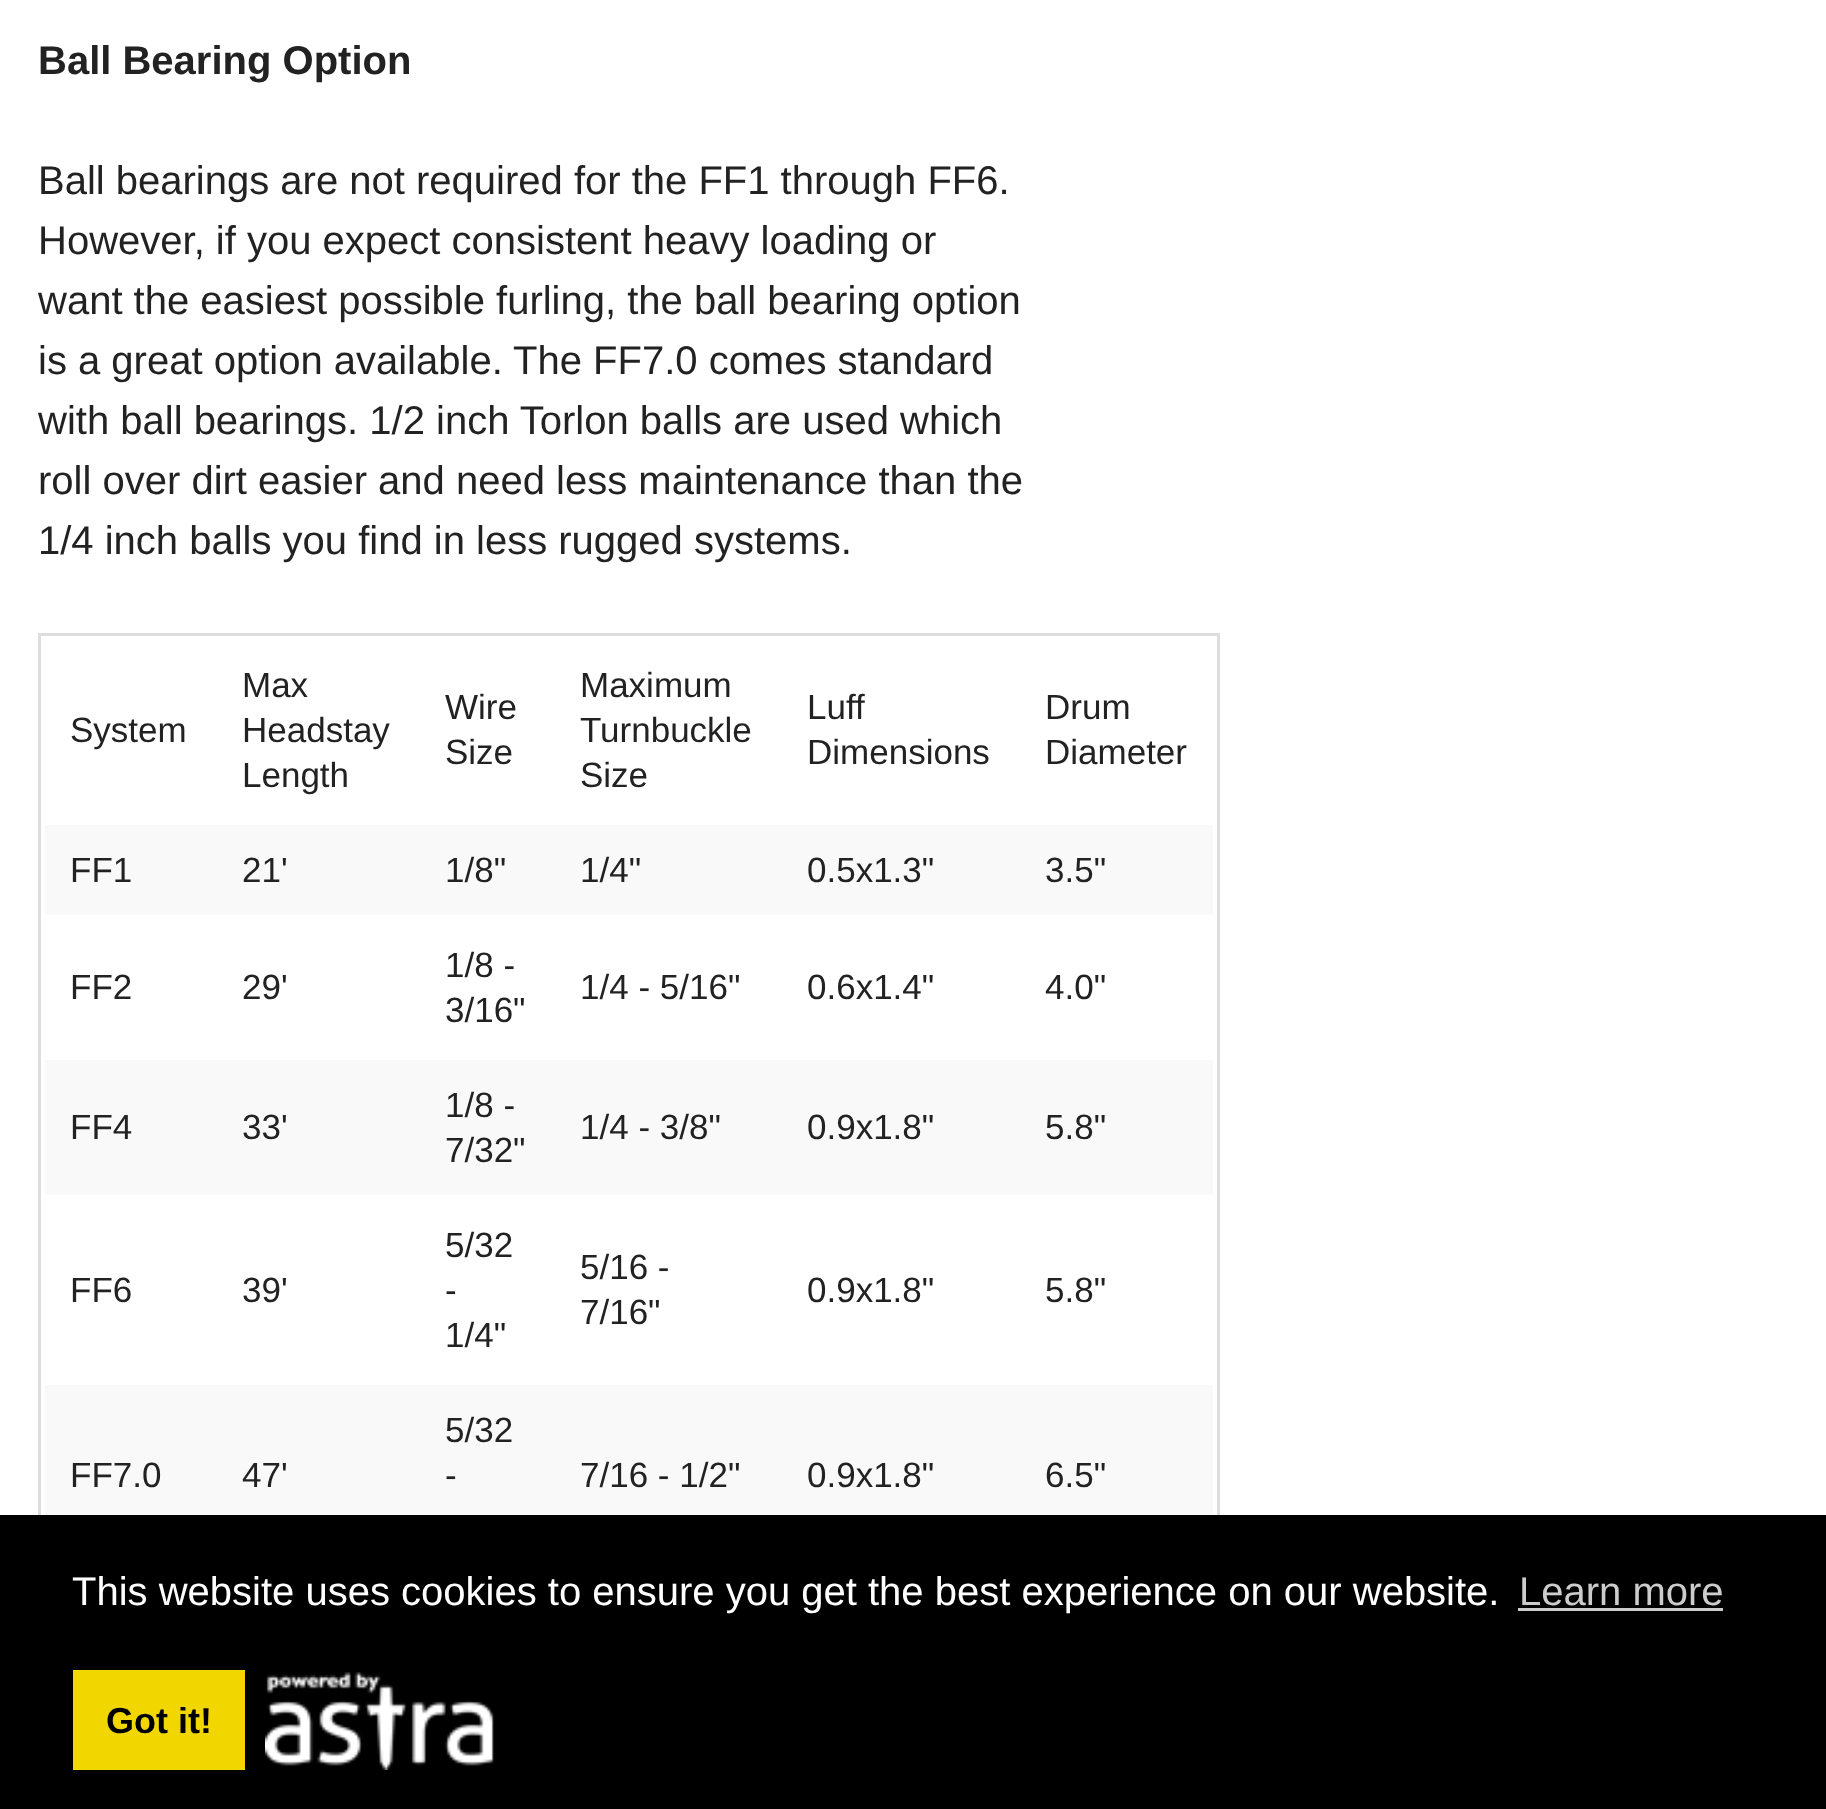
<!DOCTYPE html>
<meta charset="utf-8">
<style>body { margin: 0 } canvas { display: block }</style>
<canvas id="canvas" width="1826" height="1809"></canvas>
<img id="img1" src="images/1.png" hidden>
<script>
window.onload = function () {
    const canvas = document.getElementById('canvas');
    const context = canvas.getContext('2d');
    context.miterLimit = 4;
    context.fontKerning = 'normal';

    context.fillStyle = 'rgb(255, 255, 255)';
    context.fillRect(0, 0, 1826, 1809);
    context.strokeStyle = 'rgb(221, 221, 221)';
    context.lineWidth = 3;
    context.strokeRect(39.5, 634.5, 1179, 937);
    context.fillStyle = 'rgb(249, 249, 249)';
    context.fillRect(45, 825, 1168, 90);
    context.fillRect(45, 1060, 1168, 135);
    context.fillRect(45, 1385, 1168, 130);
    context.fillStyle = 'rgb(0, 0, 0)';
    context.fillRect(0, 1515, 1826, 294);
    context.fillStyle = 'rgb(204, 204, 204)';
    context.fillRect(1518, 1608, 205, 3);
    context.fillStyle = 'rgb(241, 214, 0)';
    context.fillRect(73, 1670, 172, 100);
    context.drawImage(document.getElementById('img1'), 265, 1672, 229, 98);
    context.font = 'bold 40px Liberation Sans';
    context.fillStyle = 'rgb(34, 34, 34)';
    context.fillText('Ball Bearing Option', 38, 74);
    context.font = '40px Liberation Sans';
    context.fillText('Ball bearings are not required for the FF1 through FF6.', 38, 194);
    context.fillText('However, if you expect consistent heavy loading or', 38, 254);
    context.fillText('want the easiest possible furling, the ball bearing option', 38, 314);
    context.fillText('is a great option available.', 38, 374);
    context.fillText('The FF7.0 comes standard', 513, 374);
    context.fillText('with ball bearings. 1/2 inch Torlon balls are used which', 38, 434);
    context.fillText('roll over dirt easier and need less maintenance than the', 38, 494);
    context.fillText('1/4 inch balls you find in less rugged systems.', 38, 554);
    context.font = '35px Liberation Sans';
    context.fillText('System', 70, 742);
    context.fillText('Max', 242, 697);
    context.fillText('Headstay', 242, 742);
    context.fillText('Length', 242, 787);
    context.fillText('Wire', 445, 719);
    context.fillText('Size', 445, 764);
    context.fillText('Maximum', 580, 697);
    context.fillText('Turnbuckle', 580, 742);
    context.fillText('Size', 580, 787);
    context.fillText('Luff', 807, 719);
    context.fillText('Dimensions', 807, 764);
    context.fillText('Drum', 1045, 719);
    context.fillText('Diameter', 1045, 764);
    context.fillText('FF1', 70, 882);
    context.fillText('21\'', 242, 882);
    context.fillText('1/8"', 445, 882);
    context.fillText('1/4"', 580, 882);
    context.fillText('0.5x1.3"', 807, 882);
    context.fillText('3.5"', 1045, 882);
    context.fillText('FF2', 70, 999);
    context.fillText('29\'', 242, 999);
    context.fillText('1/8 -', 445, 977);
    context.fillText('3/16"', 445, 1022);
    context.fillText('1/4 - 5/16"', 580, 999);
    context.fillText('0.6x1.4"', 807, 999);
    context.fillText('4.0"', 1045, 999);
    context.fillText('FF4', 70, 1139);
    context.fillText('33\'', 242, 1139);
    context.fillText('1/8 -', 445, 1117);
    context.fillText('7/32"', 445, 1162);
    context.fillText('1/4 - 3/8"', 580, 1139);
    context.fillText('0.9x1.8"', 807, 1139);
    context.fillText('5.8"', 1045, 1139);
    context.fillText('FF6', 70, 1302);
    context.fillText('39\'', 242, 1302);
    context.fillText('5/32', 445, 1257);
    context.fillText('-', 445, 1302);
    context.fillText('1/4"', 445, 1347);
    context.fillText('5/16 -', 580, 1279);
    context.fillText('7/16"', 580, 1324);
    context.fillText('0.9x1.8"', 807, 1302);
    context.fillText('5.8"', 1045, 1302);
    context.fillText('FF7.0', 70, 1487);
    context.fillText('47\'', 242, 1487);
    context.fillText('5/32', 445, 1442);
    context.fillText('-', 445, 1487);
    context.fillText('7/16 - 1/2"', 580, 1487);
    context.fillText('0.9x1.8"', 807, 1487);
    context.fillText('6.5"', 1045, 1487);
    context.font = '40px Liberation Sans';
    context.fillStyle = 'rgb(255, 255, 255)';
    context.fillText('This website uses cookies to ensure you get the best experience on our website.', 72, 1605);
    context.fillStyle = 'rgb(204, 204, 204)';
    context.fillText('Learn more', 1519, 1605);
    context.font = 'bold 36px Liberation Sans';
    context.fillStyle = 'rgb(0, 0, 0)';
    context.fillText('Got it!', 106, 1733);
};
</script>
